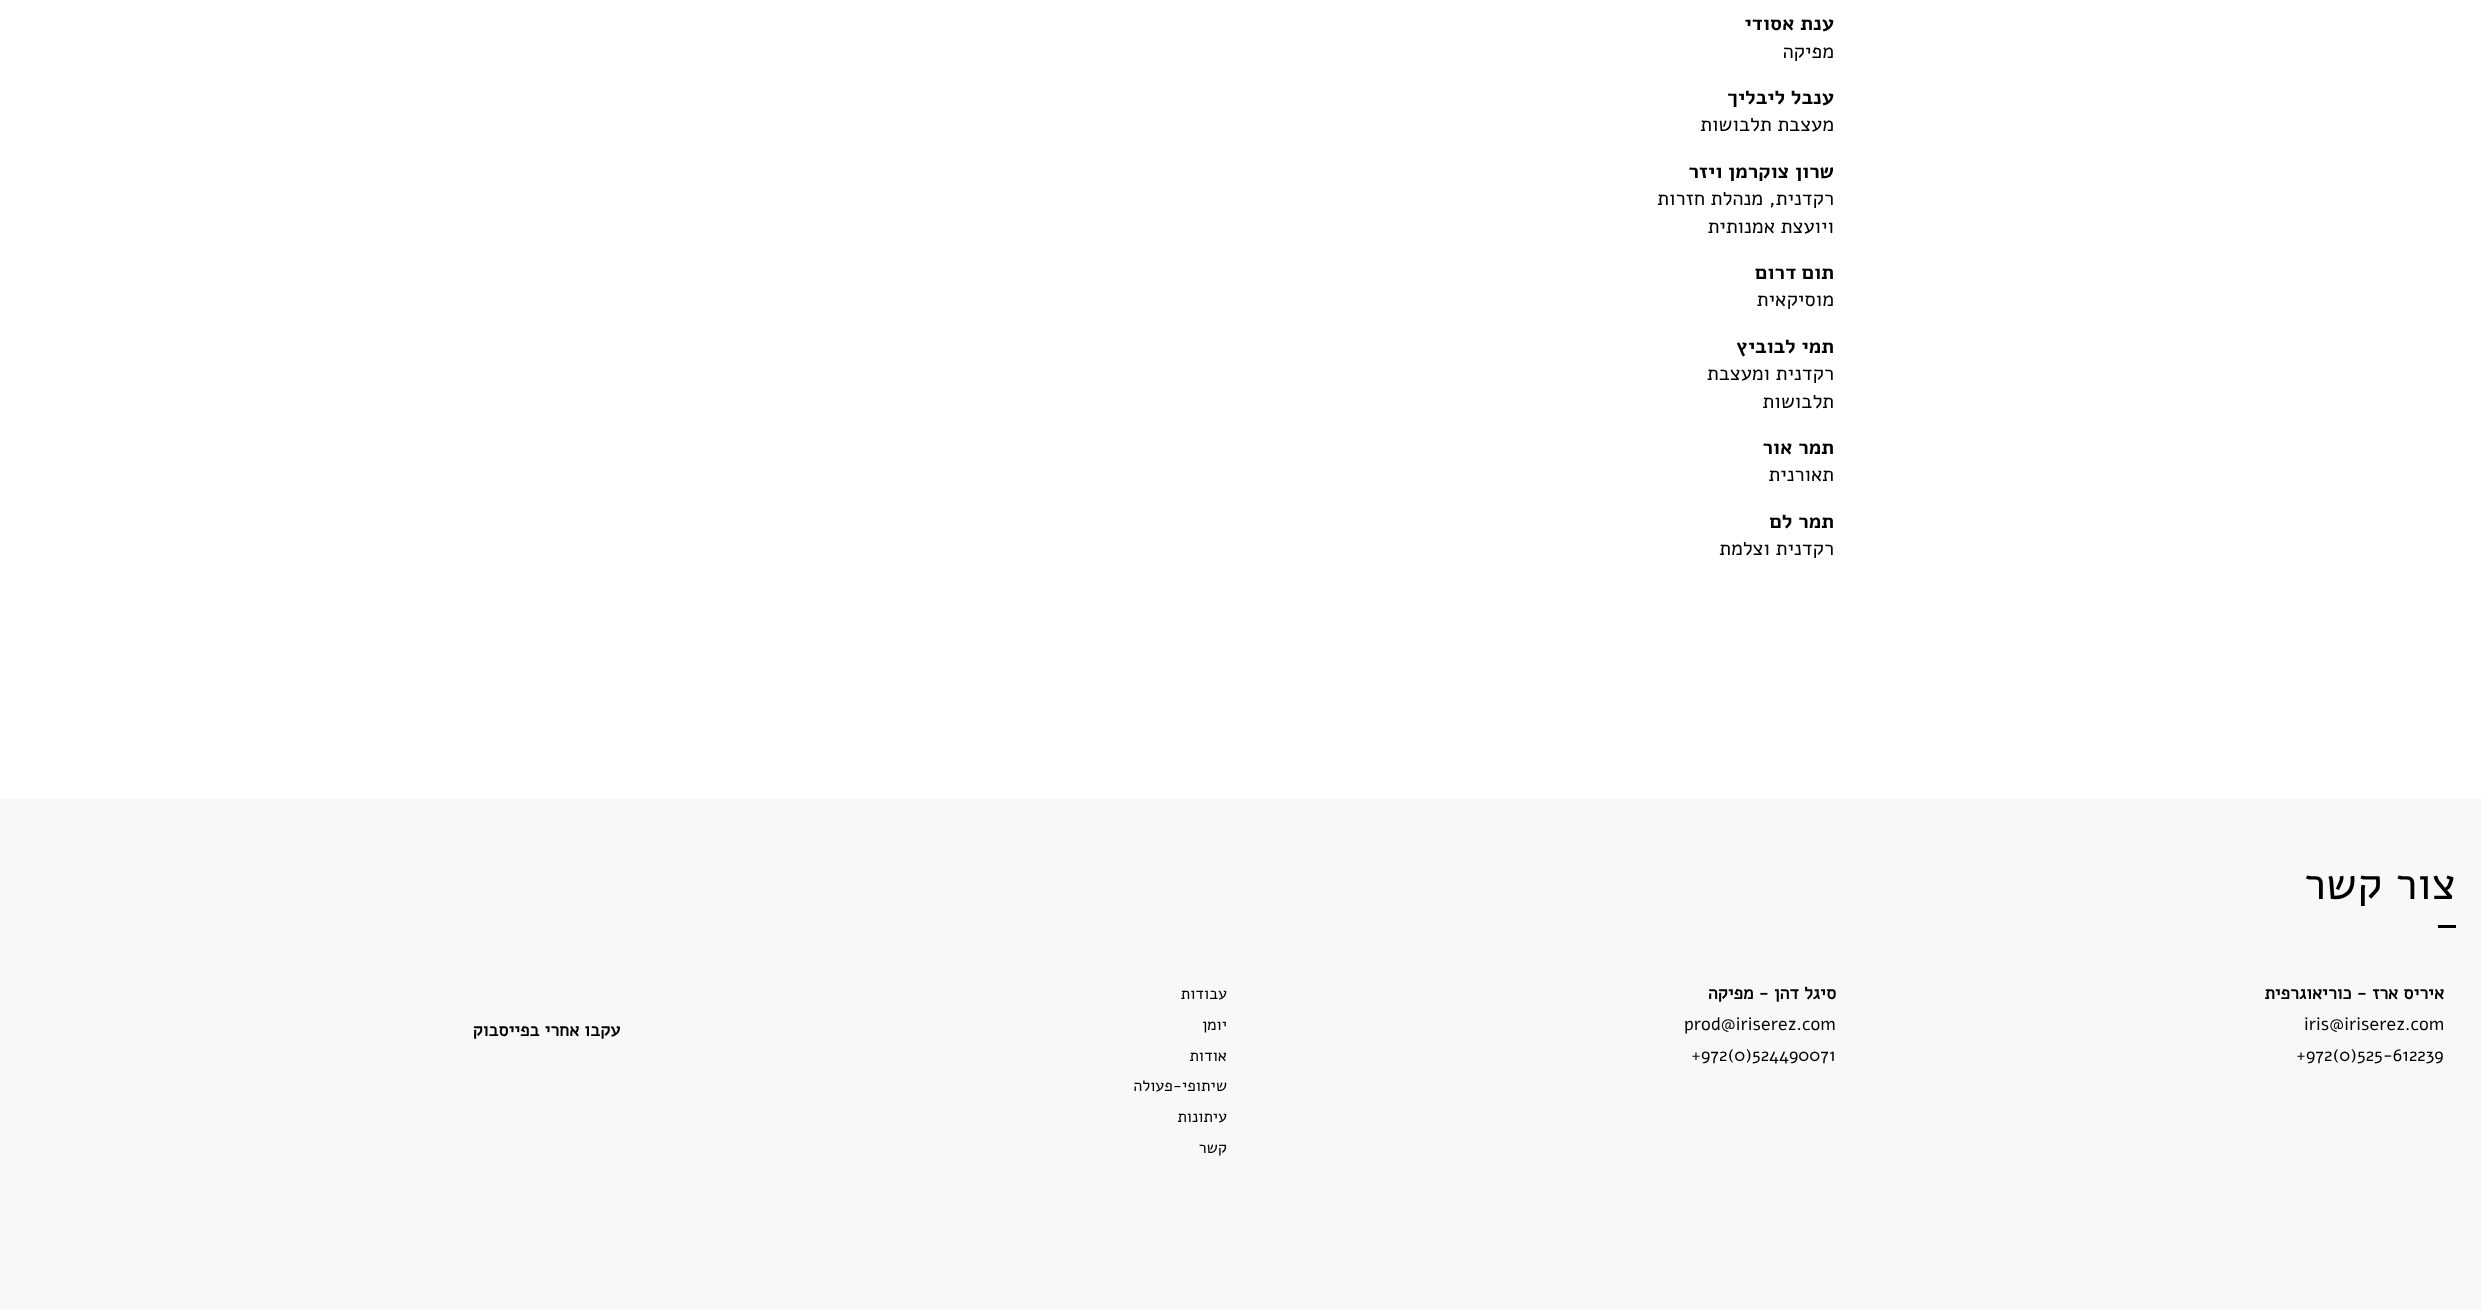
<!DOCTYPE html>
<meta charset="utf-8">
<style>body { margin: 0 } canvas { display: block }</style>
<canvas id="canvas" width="2481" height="1309"></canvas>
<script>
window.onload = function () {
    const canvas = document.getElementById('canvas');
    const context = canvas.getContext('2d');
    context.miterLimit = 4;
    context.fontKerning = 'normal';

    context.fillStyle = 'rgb(255, 255, 255)';
    context.fillRect(0, 0, 2481, 1309);
    context.fillStyle = 'rgb(248, 248, 248)';
    context.fillRect(0, 799, 2481, 510);
    context.fillStyle = 'rgb(0, 0, 0)';
    context.fillRect(2438, 925, 18, 3);
    context.direction = 'rtl';
    context.font = 'bold 20.25px Alef';
    context.fillText('ענת אסודי', 1834, 30);
    context.font = '20.25px Alef';
    context.fillText('מפיקה', 1834, 58);
    context.font = 'bold 20.25px Alef';
    context.fillText('ענבל ליבליך', 1834, 104);
    context.font = '20.25px Alef';
    context.fillText('מעצבת תלבושות', 1834, 131);
    context.font = 'bold 20.25px Alef';
    context.fillText('שרון צוקרמן ויזר', 1834, 178);
    context.font = '20.25px Alef';
    context.fillText('רקדנית, מנהלת חזרות', 1834, 205);
    context.fillText('ויועצת אמנותית', 1834, 233);
    context.font = 'bold 20.25px Alef';
    context.fillText('תום דרום', 1834, 279);
    context.font = '20.25px Alef';
    context.fillText('מוסיקאית', 1834, 306);
    context.font = 'bold 20.25px Alef';
    context.fillText('תמי לבוביץ', 1834, 353);
    context.font = '20.25px Alef';
    context.fillText('רקדנית ומעצבת', 1834, 380);
    context.fillText('תלבושות', 1834, 408);
    context.font = 'bold 20.25px Alef';
    context.fillText('תמר אור', 1834, 454);
    context.font = '20.25px Alef';
    context.fillText('תאורנית', 1834, 481);
    context.font = 'bold 20.25px Alef';
    context.fillText('תמר לם', 1834, 528);
    context.font = '20.25px Alef';
    context.fillText('רקדנית וצלמת', 1834, 555);
    context.font = '45px Alef';
    context.fillText('צור קשר', 2456, 899);
    context.font = 'bold 18px "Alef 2"';
    context.fillText('איריס ארז - כוריאוגרפית', 2444, 999);
    context.direction = 'ltr';
    context.font = '18px Alef';
    context.fillText('iris@iriserez.com', 2304, 1030);
    context.fillText('+972(0)525-612239', 2296, 1061);
    context.direction = 'rtl';
    context.font = 'bold 18px "Alef 2"';
    context.fillText('סיגל דהן - מפיקה', 1836, 999);
    context.direction = 'ltr';
    context.font = '18px Alef';
    context.fillText('prod@iriserez.com', 1684, 1030);
    context.fillText('+972(0)524490071', 1691, 1061);
    context.direction = 'rtl';
    context.font = '16.25px Alef';
    context.fillText('עבודות', 1227, 999);
    context.fillText('יומן', 1227, 1030);
    context.fillText('אודות', 1227, 1061);
    context.fillText('שיתופי-פעולה', 1227, 1091);
    context.fillText('עיתונות', 1227, 1122);
    context.fillText('קשר', 1227, 1153);
    context.font = 'bold 18px "Alef 2"';
    context.fillText('עקבו אחרי בפייסבוק', 620, 1036);
};
</script>
